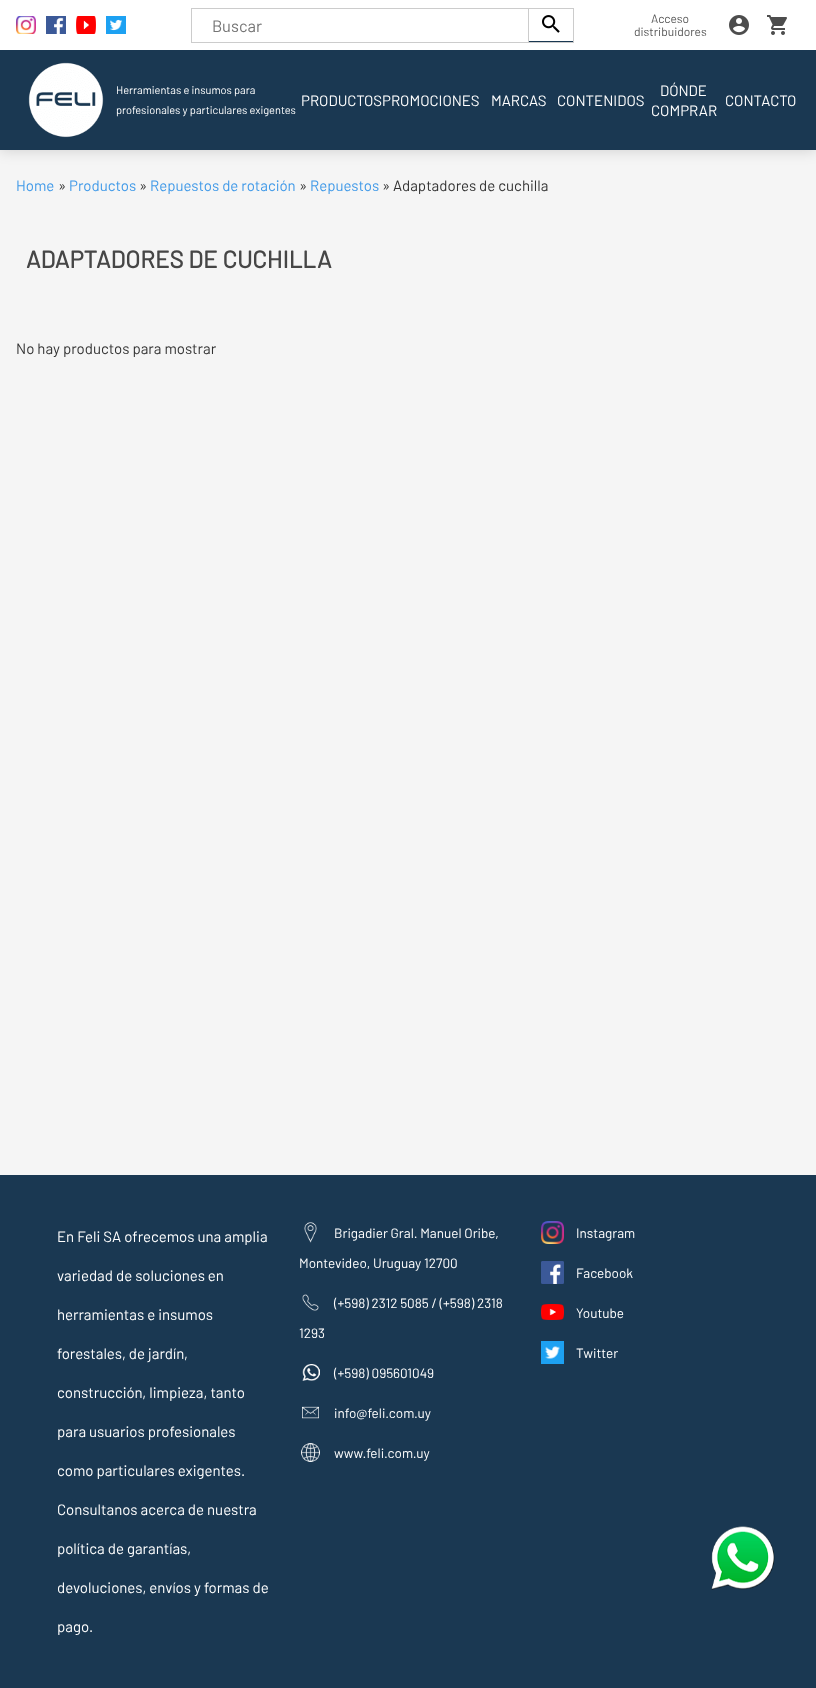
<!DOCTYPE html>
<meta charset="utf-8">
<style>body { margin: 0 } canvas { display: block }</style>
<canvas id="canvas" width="816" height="1688"></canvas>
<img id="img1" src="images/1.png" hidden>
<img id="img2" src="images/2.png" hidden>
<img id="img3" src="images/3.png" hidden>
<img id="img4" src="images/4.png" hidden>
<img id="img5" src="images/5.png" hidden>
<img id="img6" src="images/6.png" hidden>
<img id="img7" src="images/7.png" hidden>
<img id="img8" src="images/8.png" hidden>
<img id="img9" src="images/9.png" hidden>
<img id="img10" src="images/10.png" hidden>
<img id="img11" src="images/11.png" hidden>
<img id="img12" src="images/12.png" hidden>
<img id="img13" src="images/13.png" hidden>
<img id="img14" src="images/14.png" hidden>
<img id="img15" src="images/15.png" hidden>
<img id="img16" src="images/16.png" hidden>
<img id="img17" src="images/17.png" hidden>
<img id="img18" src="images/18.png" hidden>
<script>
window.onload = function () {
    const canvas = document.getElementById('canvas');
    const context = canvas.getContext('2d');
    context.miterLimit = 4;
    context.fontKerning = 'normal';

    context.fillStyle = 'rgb(245, 245, 245)';
    context.fillRect(0, 0, 816, 1688);
    context.fillStyle = 'rgba(0, 0, 0, 0.14)';
    context.filter = 'blur(7px)';
    context.beginPath();
    context.rect(0, 1, 816, 150);
    context.fill();
    context.filter = 'none';
    context.fillStyle = 'rgb(255, 255, 255)';
    context.fillRect(0, 0, 816, 50);
    context.drawImage(document.getElementById('img1'), 16, 16, 20, 18);
    context.drawImage(document.getElementById('img2'), 46, 16, 20, 18);
    context.drawImage(document.getElementById('img3'), 76, 16, 20, 18);
    context.drawImage(document.getElementById('img4'), 106, 16, 20, 18);
    context.strokeStyle = 'rgb(204, 204, 204)';
    context.strokeRect(191.5, 8.5, 382, 34);
    context.fillStyle = 'rgb(26, 56, 82)';
    context.fillRect(528, 41, 45, 1);
    context.fillStyle = 'rgb(204, 204, 204)';
    context.fillRect(528, 9, 1, 33);
    context.drawImage(document.getElementById('img5'), 542, 15, 18, 18);
    context.drawImage(document.getElementById('img6'), 729, 15, 20, 20);
    context.drawImage(document.getElementById('img7'), 767, 15, 20, 20);
    context.fillStyle = 'rgb(26, 56, 82)';
    context.fillRect(0, 50, 816, 100);
    context.drawImage(document.getElementById('img8'), 28, 62, 76, 76);
    context.fillRect(0, 1175, 816, 513);
    context.drawImage(document.getElementById('img9'), 304, 1222, 13, 21);
    context.drawImage(document.getElementById('img10'), 302, 1294, 17, 17);
    context.drawImage(document.getElementById('img11'), 302, 1364, 18, 17);
    context.drawImage(document.getElementById('img12'), 302, 1406, 17, 13);
    context.drawImage(document.getElementById('img13'), 301, 1443, 19, 19);
    context.drawImage(document.getElementById('img14'), 541, 1221, 23, 23);
    context.drawImage(document.getElementById('img15'), 541, 1261, 23, 23);
    context.drawImage(document.getElementById('img16'), 541, 1304, 23, 16);
    context.drawImage(document.getElementById('img17'), 541, 1341, 23, 23);
    context.drawImage(document.getElementById('img18'), 711, 1526, 64, 64);
    context.font = '16.5px Barlow';
    context.fillStyle = 'rgb(117, 117, 117)';
    context.fillText('Buscar', 212, 32);
    context.font = '12px Barlow';
    context.fillStyle = 'rgb(88, 88, 88)';
    context.fillText('Acceso', 651, 23);
    context.fillText('distribuidores', 634, 36);
    context.font = '11px Barlow';
    context.fillStyle = 'rgb(255, 255, 255)';
    context.fillText('Herramientas e insumos para', 116, 94);
    context.fillText('profesionales y particulares exigentes', 116, 114);
    context.font = '15px Barlow';
    context.fillText('PRODUCTOSPROMOCIONES', 301, 106);
    context.fillText('MARCAS', 491, 106);
    context.fillText('CONTENIDOS', 557, 106);
    context.fillText('DÓNDE', 660, 96);
    context.fillText('COMPRAR', 651, 116);
    context.fillText('CONTACTO', 725, 106);
    context.fillStyle = 'rgb(63, 153, 232)';
    context.fillText('Home', 16, 191);
    context.fillStyle = 'rgb(51, 51, 51)';
    context.fillText('»', 58, 191);
    context.fillStyle = 'rgb(63, 153, 232)';
    context.fillText('Productos', 69, 191);
    context.fillStyle = 'rgb(51, 51, 51)';
    context.fillText('»', 139, 191);
    context.fillStyle = 'rgb(63, 153, 232)';
    context.fillText('Repuestos de rotación', 150, 191);
    context.fillStyle = 'rgb(51, 51, 51)';
    context.fillText('»', 299, 191);
    context.fillStyle = 'rgb(63, 153, 232)';
    context.fillText('Repuestos', 310, 191);
    context.fillStyle = 'rgb(51, 51, 51)';
    context.fillText('» Adaptadores de cuchilla', 382, 191);
    context.font = 'bold 24px Barlow';
    context.fillStyle = 'rgb(70, 70, 70)';
    context.fillText('ADAPTADORES DE CUCHILLA', 26, 268);
    context.font = '15px Barlow';
    context.fillStyle = 'rgb(51, 51, 51)';
    context.fillText('No hay productos para mostrar', 16, 354);
    context.fillStyle = 'rgb(255, 255, 255)';
    context.fillText('En Feli SA ofrecemos una amplia', 57, 1242);
    context.fillText('variedad de soluciones en', 57, 1281);
    context.fillText('herramientas e insumos', 57, 1320);
    context.fillText('forestales, de jardín,', 57, 1359);
    context.fillText('construcción, limpieza, tanto', 57, 1398);
    context.fillText('para usuarios profesionales', 57, 1437);
    context.fillText('como particulares exigentes.', 57, 1476);
    context.fillText('Consultanos acerca de nuestra', 57, 1515);
    context.fillText('política de garantías,', 57, 1554);
    context.fillText('devoluciones, envíos y formas de', 57, 1593);
    context.fillText('pago.', 57, 1632);
    context.font = '13.5px Barlow';
    context.fillText('Brigadier Gral. Manuel Oribe,', 334, 1238);
    context.fillText('Montevideo, Uruguay 12700', 299, 1268);
    context.fillText('(+598) 2312 5085 / (+598) 2318', 334, 1308);
    context.fillText('1293', 299, 1338);
    context.fillText('(+598) 095601049', 334, 1378);
    context.fillText('info@feli.com.uy', 334, 1418);
    context.fillText('www.feli.com.uy', 334, 1458);
    context.fillText('Instagram', 576, 1238);
    context.fillText('Facebook', 576, 1278);
    context.fillText('Youtube', 576, 1318);
    context.fillText('Twitter', 576, 1358);
};
</script>
